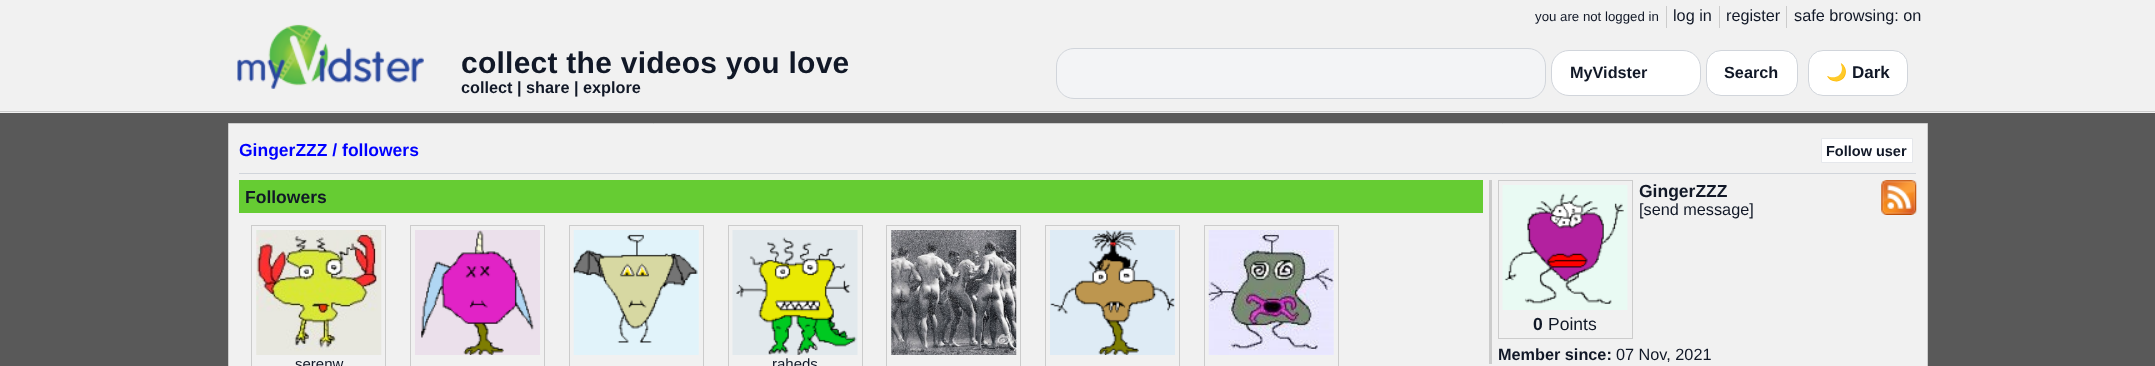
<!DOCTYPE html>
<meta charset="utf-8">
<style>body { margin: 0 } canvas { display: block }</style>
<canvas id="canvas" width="2155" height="366"></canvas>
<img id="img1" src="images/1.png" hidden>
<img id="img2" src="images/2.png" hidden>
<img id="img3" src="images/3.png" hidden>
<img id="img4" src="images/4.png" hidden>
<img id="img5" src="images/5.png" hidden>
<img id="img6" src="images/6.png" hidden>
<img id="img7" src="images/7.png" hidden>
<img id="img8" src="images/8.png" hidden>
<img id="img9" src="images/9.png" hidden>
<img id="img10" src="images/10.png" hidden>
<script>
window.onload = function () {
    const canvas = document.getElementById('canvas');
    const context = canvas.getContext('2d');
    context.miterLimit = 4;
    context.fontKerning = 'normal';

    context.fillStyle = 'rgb(241, 241, 241)';
    context.fillRect(0, 0, 2155, 366);
    context.fillStyle = 'rgb(204, 204, 204)';
    context.fillRect(0, 111, 2155, 1);
    context.drawImage(document.getElementById('img1'), 237, 24, 187, 65);
    context.fillRect(1666, 6, 1, 22);
    context.fillRect(1719, 6, 1, 22);
    context.fillRect(1786, 6, 1, 22);
    context.fillStyle = 'rgb(243, 244, 246)';
    context.beginPath();
    context.roundRect(1056.5, 48.5, 489, 50, 17.5);
    context.fill();
    context.strokeStyle = 'rgb(209, 213, 219)';
    context.stroke();
    context.fillStyle = 'rgb(255, 255, 255)';
    context.beginPath();
    context.roundRect(1551.5, 50.5, 149, 45, 17.5);
    context.fill();
    context.stroke();
    context.beginPath();
    context.roundRect(1706.5, 50.5, 91, 45, 14.5);
    context.fill();
    context.stroke();
    context.beginPath();
    context.roundRect(1808.5, 50.5, 99, 45, 14.5);
    context.fill();
    context.stroke();
    context.fillStyle = 'rgb(89, 89, 89)';
    context.fillRect(0, 113, 2155, 253);
    context.fillStyle = 'rgb(241, 241, 241)';
    context.beginPath();
    context.rect(228.5, 123.5, 1699, 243);
    context.fill();
    context.strokeStyle = 'rgb(204, 204, 204)';
    context.stroke();
    context.fillStyle = 'rgb(209, 213, 219)';
    context.fillRect(239, 173, 1677, 1);
    context.fillStyle = 'rgb(255, 255, 255)';
    context.beginPath();
    context.rect(1821.5, 138.5, 91, 24);
    context.fill();
    context.strokeStyle = 'rgb(229, 231, 235)';
    context.stroke();
    context.fillStyle = 'rgb(102, 204, 51)';
    context.fillRect(239, 180, 1244, 33);
    context.strokeStyle = 'rgb(204, 204, 204)';
    context.strokeRect(251.5, 225.5, 134, 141);
    context.drawImage(document.getElementById('img2'), 256, 230, 126, 125);
    context.strokeRect(410.5, 225.5, 134, 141);
    context.drawImage(document.getElementById('img3'), 415, 230, 125, 125);
    context.strokeRect(569.5, 225.5, 134, 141);
    context.drawImage(document.getElementById('img4'), 573, 230, 126, 125);
    context.strokeRect(728.5, 225.5, 134, 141);
    context.drawImage(document.getElementById('img5'), 732, 230, 126, 125);
    context.strokeRect(886.5, 225.5, 134, 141);
    context.drawImage(document.getElementById('img6'), 891, 230, 126, 125);
    context.strokeRect(1045.5, 225.5, 134, 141);
    context.drawImage(document.getElementById('img7'), 1050, 230, 125, 125);
    context.strokeRect(1204.5, 225.5, 134, 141);
    context.drawImage(document.getElementById('img8'), 1208, 230, 126, 125);
    context.fillStyle = 'rgb(204, 204, 204)';
    context.fillRect(1489, 180, 3, 184);
    context.drawImage(document.getElementById('img9'), 1881, 180, 36, 35);
    context.strokeRect(1498.5, 180.5, 134, 158);
    context.drawImage(document.getElementById('img10'), 1502, 185, 126, 125);
    context.font = '13.25px Liberation Sans';
    context.fillStyle = 'rgb(17, 24, 39)';
    context.fillText('you are not logged in', 1535, 21);
    context.font = '16.25px Liberation Sans';
    context.fillText('log in', 1673, 21);
    context.fillText('register', 1726, 21);
    context.fillText('safe browsing: on', 1794, 21);
    context.letterSpacing = '0.25px';
    context.font = 'bold 30px Liberation Sans';
    context.fillText('collect the videos you love', 461, 73);
    context.letterSpacing = '0px';
    context.font = 'bold 16.25px Liberation Sans';
    context.fillText('collect | share | explore', 461, 93);
    context.fillText('MyVidster', 1570, 78);
    context.fillText('Search', 1724, 78);
    context.font = 'bold 17px Noto Color Emoji';
    context.fillText('🌙', 1826, 78);
    context.font = 'bold 17px Liberation Sans';
    context.fillText('Dark', 1852, 78);
    context.font = 'bold 17.5px Liberation Sans';
    context.fillStyle = 'rgb(0, 0, 255)';
    context.fillText('GingerZZZ / followers', 239, 156);
    context.font = 'bold 14.5px Liberation Sans';
    context.fillStyle = 'rgb(17, 24, 39)';
    context.fillText('Follow user', 1826, 156);
    context.font = 'bold 17.5px Liberation Sans';
    context.fillText('Followers', 245, 203);
    context.font = '15px Liberation Sans';
    context.fillText('serenw', 295, 369);
    context.fillText('raheds', 772, 369);
    context.font = 'bold 17.5px Liberation Sans';
    context.fillText('GingerZZZ', 1639, 197);
    context.font = '16.25px Liberation Sans';
    context.fillText('[send message]', 1639, 215);
    context.font = 'bold 17.5px Liberation Sans';
    context.fillText('0', 1533, 330);
    context.font = '17.5px Liberation Sans';
    context.fillText('Points', 1548, 330);
    context.font = 'bold 16.25px Liberation Sans';
    context.fillText('Member since:', 1498, 360);
    context.font = '16.25px Liberation Sans';
    context.fillText('07 Nov, 2021', 1616, 360);
};
</script>
